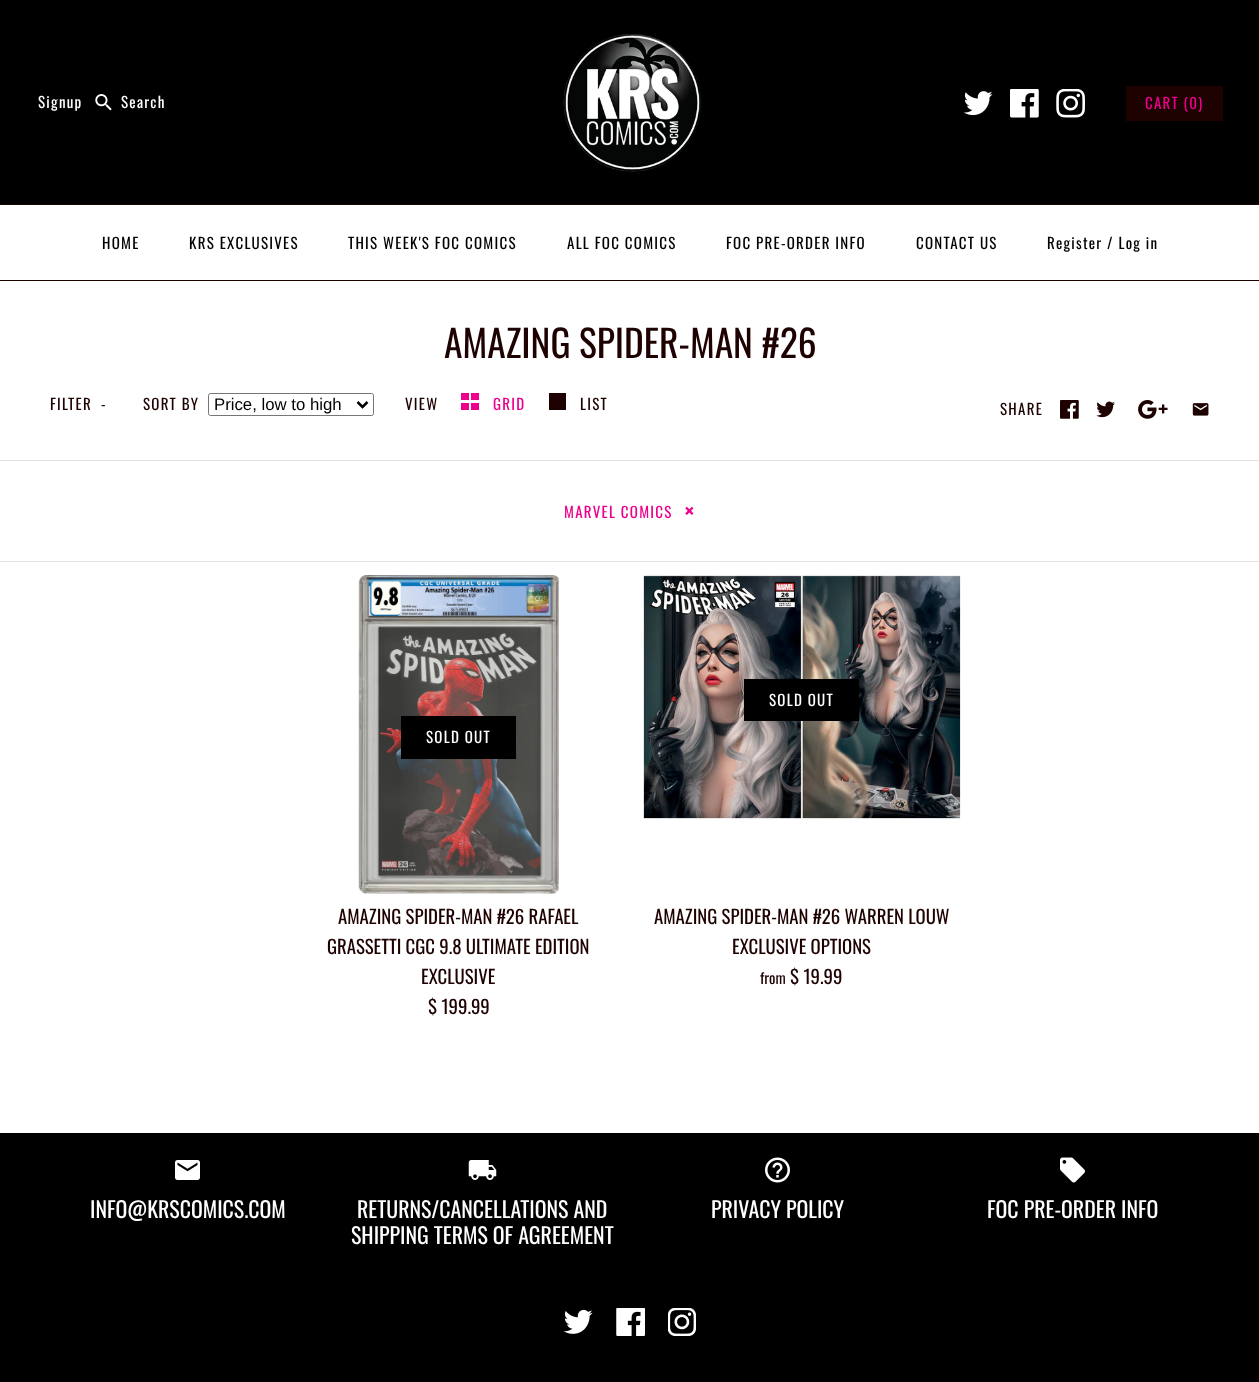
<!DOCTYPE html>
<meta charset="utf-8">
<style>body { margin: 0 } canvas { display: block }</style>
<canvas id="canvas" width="1259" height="1382"></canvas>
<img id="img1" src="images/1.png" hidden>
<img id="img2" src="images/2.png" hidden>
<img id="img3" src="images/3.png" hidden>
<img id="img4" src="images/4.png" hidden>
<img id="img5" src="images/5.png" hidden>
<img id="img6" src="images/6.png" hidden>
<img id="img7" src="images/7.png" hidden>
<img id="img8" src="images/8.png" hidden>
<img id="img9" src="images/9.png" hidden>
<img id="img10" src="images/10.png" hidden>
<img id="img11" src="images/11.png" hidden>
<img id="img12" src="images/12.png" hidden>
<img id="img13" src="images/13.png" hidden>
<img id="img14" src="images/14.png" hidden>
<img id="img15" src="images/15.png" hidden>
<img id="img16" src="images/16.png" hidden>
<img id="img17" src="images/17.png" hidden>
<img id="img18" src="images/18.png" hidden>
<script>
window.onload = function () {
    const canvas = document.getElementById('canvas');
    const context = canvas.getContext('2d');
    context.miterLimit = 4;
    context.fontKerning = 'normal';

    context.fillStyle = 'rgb(255, 255, 255)';
    context.fillRect(0, 0, 1259, 1382);
    context.fillStyle = 'rgb(0, 0, 0)';
    context.fillRect(0, 0, 1259, 204);
    context.drawImage(document.getElementById('img1'), 563, 34, 139, 138);
    context.drawImage(document.getElementById('img2'), 95, 94, 17, 17);
    context.drawImage(document.getElementById('img3'), 964, 91, 29, 25);
    context.drawImage(document.getElementById('img4'), 1010, 89, 29, 29);
    context.drawImage(document.getElementById('img5'), 1056, 89, 29, 29);
    context.fillStyle = 'rgb(30, 1, 1)';
    context.fillRect(1126, 86, 97, 35);
    context.fillRect(0, 280, 1259, 1);
    context.fillRect(0, 204, 1259, 1);
    context.beginPath();
    context.roundRect(208.5, 393.5, 165, 22, 2);
    context.strokeStyle = 'rgb(118, 118, 118)';
    context.stroke();
    context.beginPath();
    context.moveTo(357.5, 402);
    context.lineTo(362.5, 407);
    context.lineTo(367.5, 402);
    context.strokeStyle = 'rgb(0, 0, 0)';
    context.lineWidth = 2.5;
    context.stroke();
    context.fillStyle = 'rgb(236, 0, 140)';
    context.fillRect(461, 393, 8, 7);
    context.fillRect(471, 393, 8, 7);
    context.fillRect(461, 403, 8, 7);
    context.fillRect(471, 403, 8, 7);
    context.fillStyle = 'rgb(30, 1, 1)';
    context.fillRect(549, 393, 17, 17);
    context.drawImage(document.getElementById('img6'), 1060, 400, 19, 19);
    context.drawImage(document.getElementById('img7'), 1096, 401, 19, 17);
    context.drawImage(document.getElementById('img8'), 1138, 400, 30, 19);
    context.drawImage(document.getElementById('img9'), 1192, 403, 17, 13);
    context.fillStyle = 'rgb(226, 226, 226)';
    context.fillRect(0, 460, 1259, 1);
    context.fillRect(0, 561, 1259, 1);
    context.drawImage(document.getElementById('img10'), 358, 575, 201, 319);
    context.fillStyle = 'rgb(0, 0, 0)';
    context.fillRect(401, 716, 115, 43);
    context.drawImage(document.getElementById('img11'), 643, 575, 318, 245);
    context.fillRect(744, 679, 115, 42);
    context.fillRect(0, 1133, 1259, 249);
    context.drawImage(document.getElementById('img12'), 175, 1160, 25, 20);
    context.drawImage(document.getElementById('img13'), 468, 1160, 29, 20);
    context.drawImage(document.getElementById('img14'), 765, 1157, 25, 26);
    context.drawImage(document.getElementById('img15'), 1060, 1157, 25, 26);
    context.drawImage(document.getElementById('img16'), 564, 1309, 29, 25);
    context.drawImage(document.getElementById('img17'), 616, 1308, 29, 28);
    context.drawImage(document.getElementById('img18'), 668, 1308, 28, 28);
    context.letterSpacing = '1.25px';
    context.font = '15px Oswald';
    context.fillStyle = 'rgb(255, 255, 255)';
    context.fillText('Signup', 38, 108);
    context.fillText('Search', 121, 108);
    context.fillStyle = 'rgb(236, 0, 140)';
    context.fillText('CART (0)', 1145, 109);
    context.fillStyle = 'rgb(0, 0, 0)';
    context.fillText('HOME', 102, 249);
    context.fillText('KRS EXCLUSIVES', 189, 249);
    context.fillText('THIS WEEK\'S FOC COMICS', 348, 249);
    context.fillText('ALL FOC COMICS', 567, 249);
    context.fillText('FOC PRE-ORDER INFO', 726, 249);
    context.fillText('CONTACT US', 916, 249);
    context.fillText('Register / Log in', 1047, 249);
    context.letterSpacing = '0px';
    context.font = '37.5px Oswald';
    context.fillStyle = 'rgb(30, 1, 1)';
    context.fillText('AMAZING SPIDER-MAN #26', 444, 358);
    context.letterSpacing = '1.25px';
    context.font = '15px Oswald';
    context.fillText('FILTER', 50, 410);
    context.fillText('-', 101, 410);
    context.fillText('SORT BY', 143, 410);
    context.letterSpacing = '0px';
    context.font = '16.75px Liberation Sans';
    context.fillStyle = 'rgb(0, 0, 0)';
    context.fillText('Price, low to high', 214, 410);
    context.letterSpacing = '1.25px';
    context.font = '15px Oswald';
    context.fillStyle = 'rgb(30, 1, 1)';
    context.fillText('VIEW', 405, 410);
    context.fillStyle = 'rgb(236, 0, 140)';
    context.fillText('GRID', 493, 410);
    context.fillStyle = 'rgb(30, 1, 1)';
    context.fillText('LIST', 580, 410);
    context.fillText('SHARE', 1000, 415);
    context.fillStyle = 'rgb(236, 0, 140)';
    context.fillText('MARVEL COMICS', 564, 518);
    context.font = 'bold 22px Oswald';
    context.fillText('×', 684, 520);
    context.font = '15px Oswald';
    context.fillStyle = 'rgb(255, 255, 255)';
    context.fillText('SOLD OUT', 426, 743);
    context.letterSpacing = '0px';
    context.font = '18.75px Oswald';
    context.fillStyle = 'rgb(30, 1, 1)';
    context.fillText('AMAZING SPIDER-MAN #26 RAFAEL', 338, 924);
    context.fillText('GRASSETTI CGC 9.8 ULTIMATE EDITION', 327, 954);
    context.fillText('EXCLUSIVE', 421, 984);
    context.fillText('$ 199.99', 428, 1014);
    context.letterSpacing = '1.25px';
    context.font = '15px Oswald';
    context.fillStyle = 'rgb(255, 255, 255)';
    context.fillText('SOLD OUT', 769, 706);
    context.letterSpacing = '0px';
    context.font = '18.75px Oswald';
    context.fillStyle = 'rgb(30, 1, 1)';
    context.fillText('AMAZING SPIDER-MAN #26 WARREN LOUW', 654, 924);
    context.fillText('EXCLUSIVE OPTIONS', 732, 954);
    context.font = '15px Oswald';
    context.fillText('from', 760, 984);
    context.font = '18.75px Oswald';
    context.fillText('$ 19.99', 790, 984);
    context.font = '21.9px Oswald';
    context.fillStyle = 'rgb(255, 255, 255)';
    context.fillText('INFO@KRSCOMICS.COM', 90, 1218);
    context.fillText('RETURNS/CANCELLATIONS AND', 357, 1218);
    context.fillText('SHIPPING TERMS OF AGREEMENT', 351, 1244);
    context.fillText('PRIVACY POLICY', 711, 1218);
    context.fillText('FOC PRE-ORDER INFO', 987, 1218);
};
</script>
